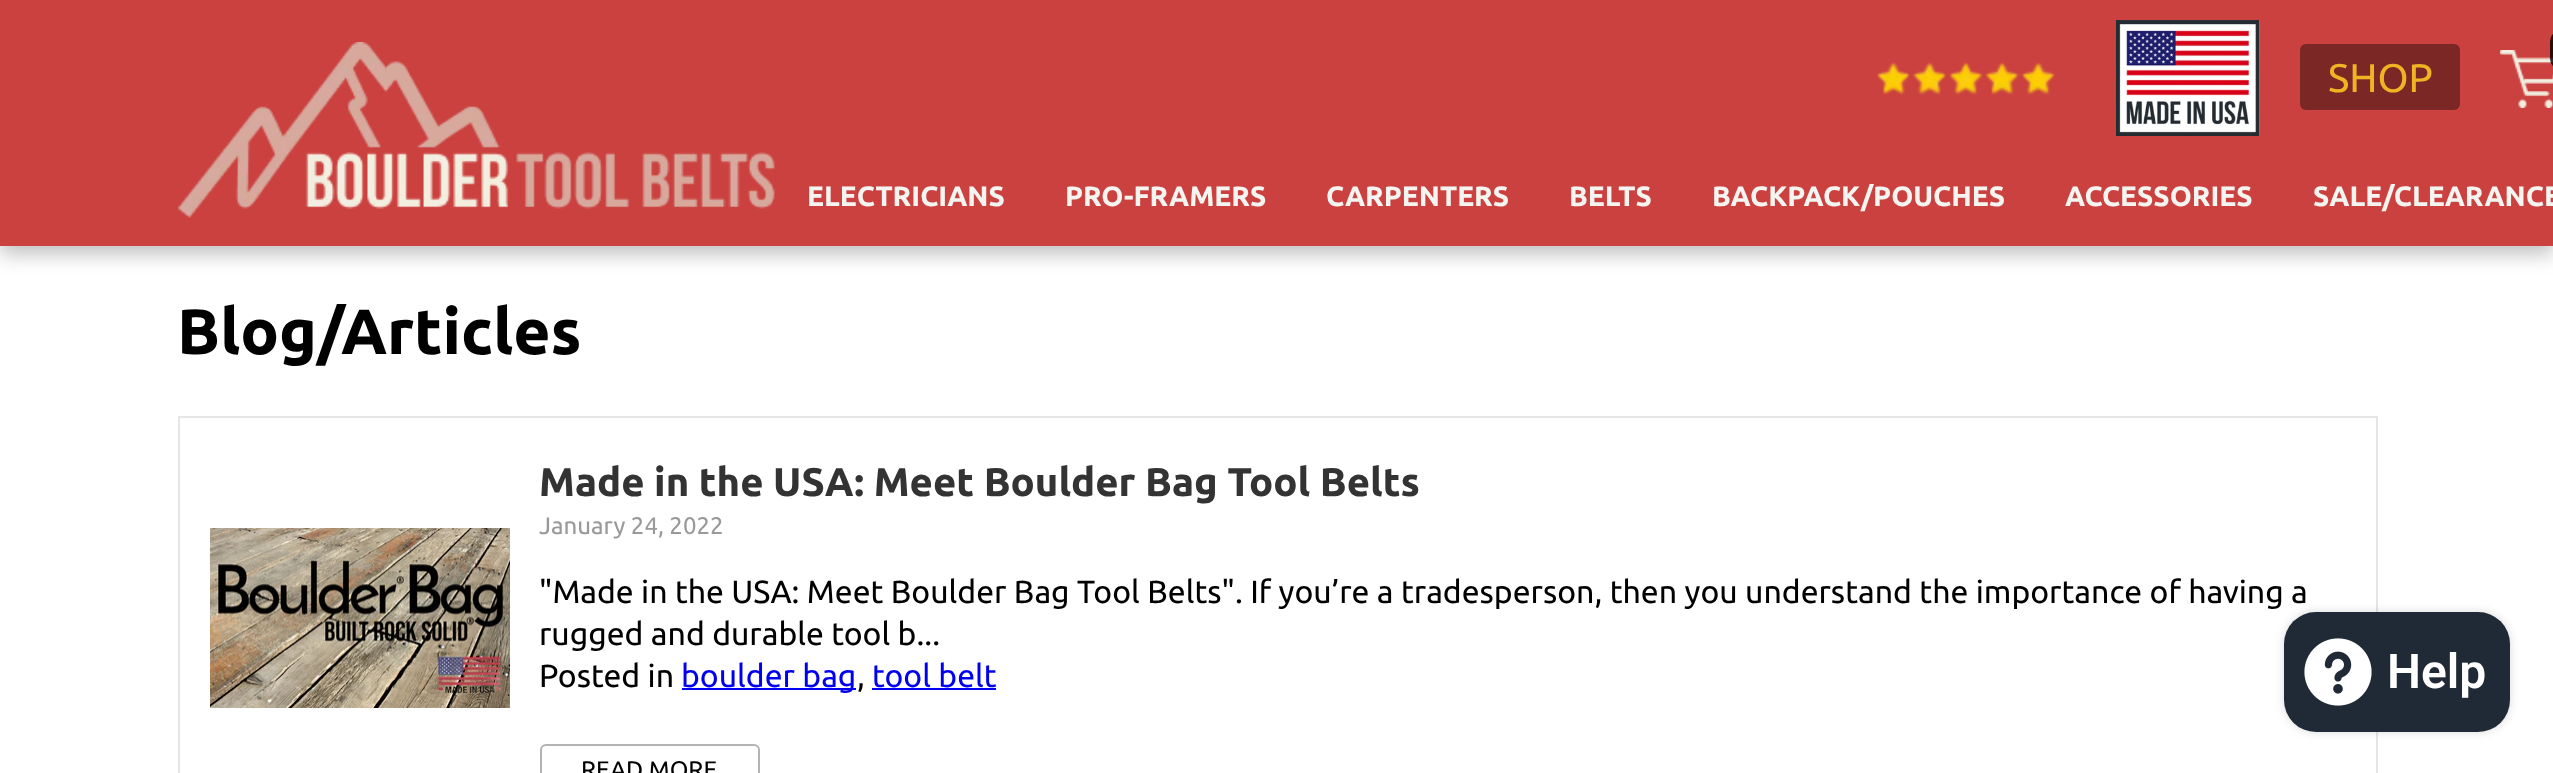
<!DOCTYPE html>
<meta charset="utf-8">
<style>body { margin: 0 } canvas { display: block }</style>
<canvas id="canvas" width="2553" height="773"></canvas>
<img id="img1" src="images/1.png" hidden>
<img id="img2" src="images/2.png" hidden>
<img id="img3" src="images/3.png" hidden>
<img id="img4" src="images/4.png" hidden>
<img id="img5" src="images/5.png" hidden>
<img id="img6" src="images/6.png" hidden>
<script>
window.onload = function () {
    const canvas = document.getElementById('canvas');
    const context = canvas.getContext('2d');
    context.miterLimit = 4;
    context.fontKerning = 'normal';

    context.fillStyle = 'rgb(255, 255, 255)';
    context.fillRect(0, 0, 2553, 773);
    context.fillStyle = 'rgba(0, 0, 0, 0.25)';
    context.filter = 'blur(10px)';
    context.beginPath();
    context.rect(0, 8, 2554, 246);
    context.fill();
    context.filter = 'none';
    context.fillStyle = 'rgb(203, 65, 63)';
    context.fillRect(0, 0, 2553, 246);
    context.drawImage(document.getElementById('img1'), 178, 42, 597, 176);
    context.drawImage(document.getElementById('img2'), 1877, 62, 178, 33);
    context.drawImage(document.getElementById('img3'), 2116, 20, 144, 116);
    context.fillStyle = 'rgb(122, 39, 38)';
    context.beginPath();
    context.roundRect(2300, 44, 160, 66, 6);
    context.fill();
    context.drawImage(document.getElementById('img4'), 2500, 50, 53, 58);
    context.fillStyle = 'rgba(0, 0, 0, 0.8)';
    context.beginPath();
    context.roundRect(2550, 30, 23, 40, 20);
    context.fill();
    context.strokeStyle = 'rgb(230, 230, 230)';
    context.lineWidth = 2;
    context.strokeRect(179, 417, 2198, 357);
    context.drawImage(document.getElementById('img5'), 210, 528, 300, 180);
    context.fillStyle = 'rgb(0, 0, 238)';
    context.fillRect(682, 688, 174, 2);
    context.fillRect(872, 688, 124, 2);
    context.beginPath();
    context.roundRect(541, 745, 218, 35, 5);
    context.strokeStyle = 'rgb(179, 179, 179)';
    context.stroke();
    context.fillStyle = 'rgba(0, 0, 0, 0.15)';
    context.filter = 'blur(5px)';
    context.beginPath();
    context.roundRect(2284, 612, 226, 120, 32);
    context.fill();
    context.filter = 'none';
    context.fillStyle = 'rgb(32, 42, 54)';
    context.beginPath();
    context.roundRect(2284, 612, 226, 120, 32);
    context.fill();
    context.drawImage(document.getElementById('img6'), 2304, 638, 68, 68);
    context.font = '40px Ubuntu';
    context.fillStyle = 'rgb(240, 179, 36)';
    context.fillText('SHOP', 2328, 92);
    context.font = 'bold 28px Ubuntu';
    context.fillStyle = 'rgb(244, 244, 240)';
    context.fillText('ELECTRICIANS', 807, 206);
    context.fillText('PRO-FRAMERS', 1065, 206);
    context.fillText('CARPENTERS', 1326, 206);
    context.fillText('BELTS', 1569, 206);
    context.fillText('BACKPACK/POUCHES', 1712, 206);
    context.fillText('ACCESSORIES', 2065, 206);
    context.fillText('SALE/CLEARANCE', 2313, 206);
    context.font = 'bold 64px Ubuntu';
    context.fillStyle = 'rgb(0, 0, 0)';
    context.fillText('Blog/Articles', 177, 354);
    context.font = 'bold 40px Ubuntu';
    context.fillStyle = 'rgb(51, 51, 51)';
    context.fillText('Made in the USA: Meet Boulder Bag Tool Belts', 539, 496);
    context.font = '24px Ubuntu';
    context.fillStyle = 'rgb(153, 153, 153)';
    context.fillText('January 24, 2022', 539, 534);
    context.font = '32px Ubuntu';
    context.fillStyle = 'rgb(0, 0, 0)';
    context.fillText('"Made in the USA: Meet Boulder Bag Tool Belts". If you’re a tradesperson, then you understand the importance of having a', 539, 603);
    context.fillText('rugged and durable tool b...', 539, 645);
    context.fillText('Posted in', 539, 687);
    context.fillStyle = 'rgb(0, 0, 238)';
    context.fillText('boulder bag', 681, 687);
    context.fillStyle = 'rgb(0, 0, 0)';
    context.fillText(',', 857, 687);
    context.fillStyle = 'rgb(0, 0, 238)';
    context.fillText('tool belt', 872, 687);
    context.font = '24px Ubuntu';
    context.fillStyle = 'rgb(0, 0, 0)';
    context.fillText('READ MORE', 581, 778);
    context.font = '600 48px Roboto';
    context.fillStyle = 'rgb(255, 255, 255)';
    context.fillText('Help', 2387, 688);
};
</script>
